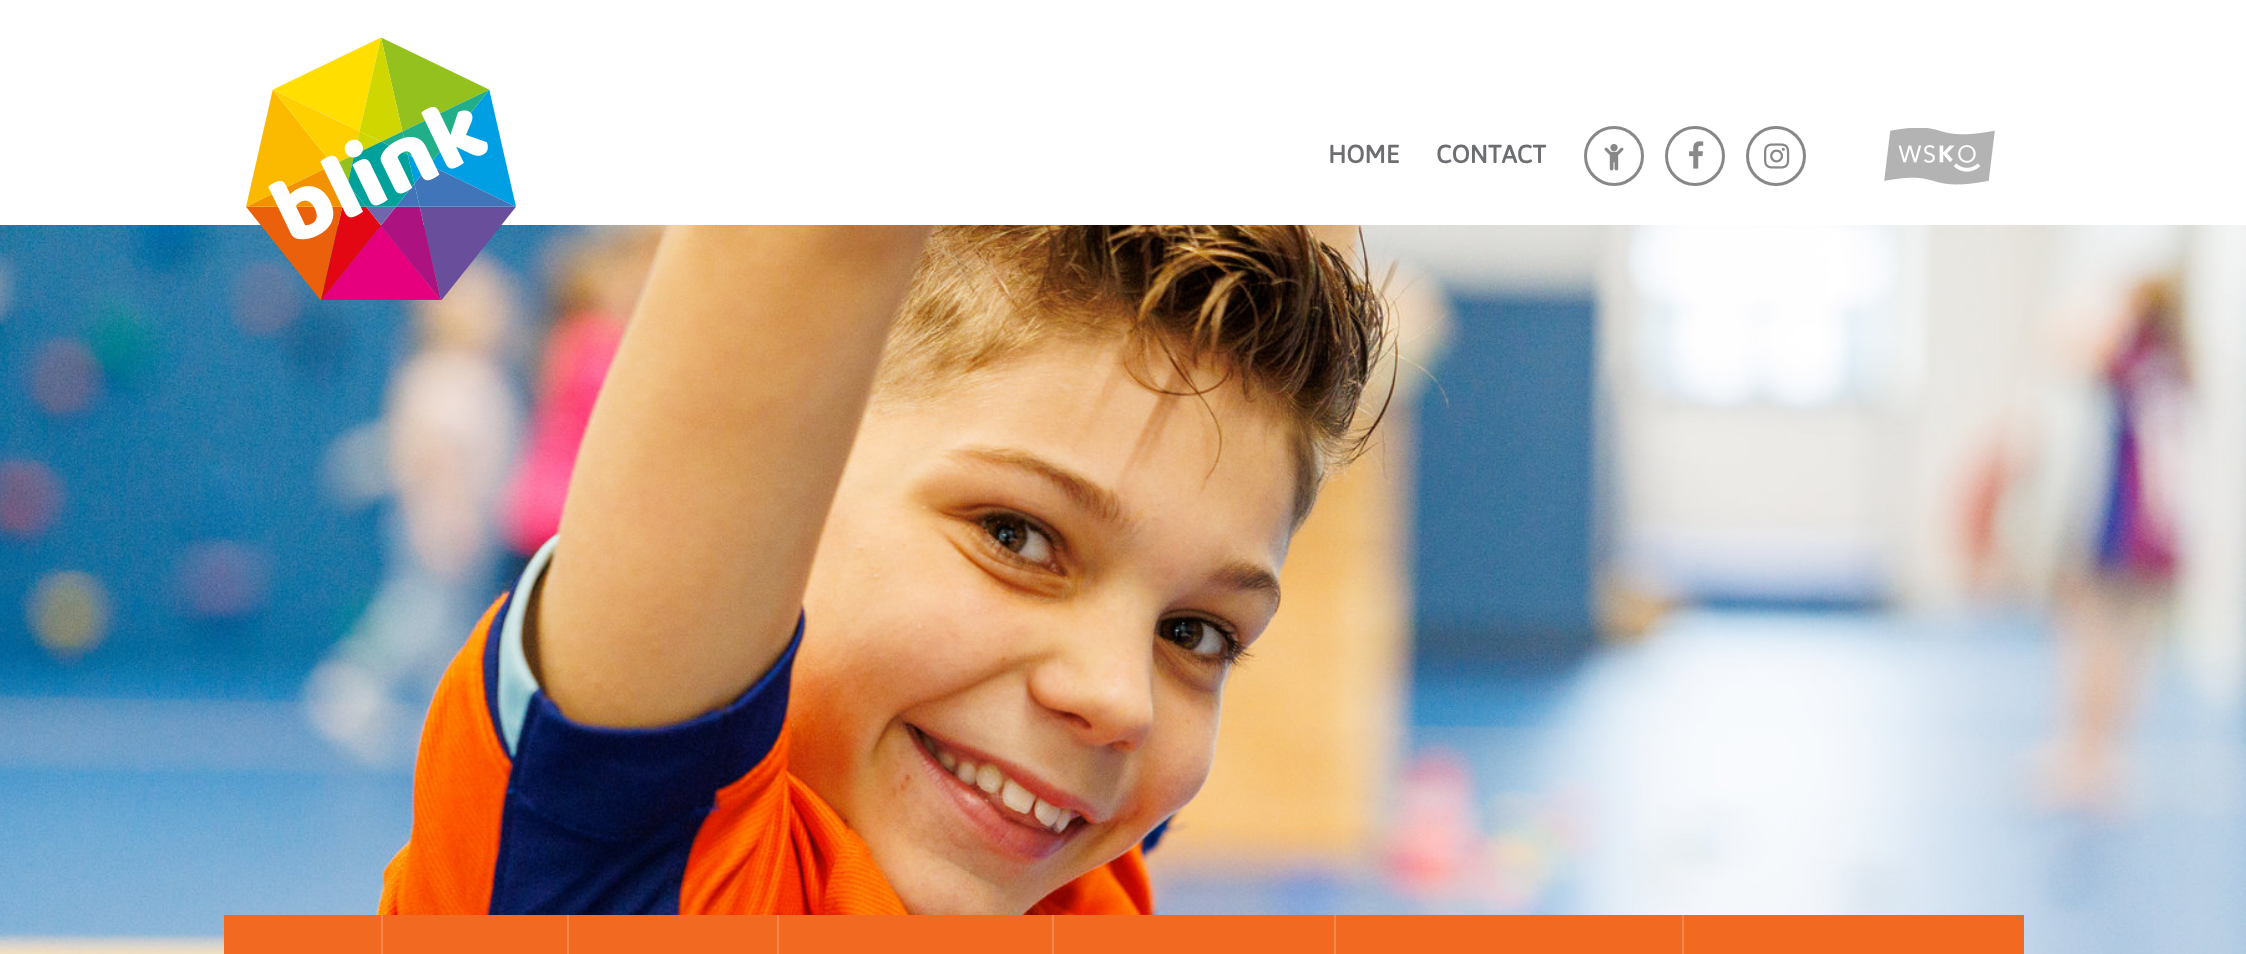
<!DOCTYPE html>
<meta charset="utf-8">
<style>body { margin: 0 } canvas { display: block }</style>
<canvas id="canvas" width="2246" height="954"></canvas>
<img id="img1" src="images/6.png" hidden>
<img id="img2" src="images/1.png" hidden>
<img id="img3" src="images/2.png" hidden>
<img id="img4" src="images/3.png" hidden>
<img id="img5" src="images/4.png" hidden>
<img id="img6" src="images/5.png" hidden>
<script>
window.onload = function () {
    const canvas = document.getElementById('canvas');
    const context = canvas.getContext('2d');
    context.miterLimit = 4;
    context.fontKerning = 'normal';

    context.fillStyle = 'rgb(255, 255, 255)';
    context.fillRect(0, 0, 2246, 954);
    context.drawImage(document.getElementById('img1'), 0, 225, 2246, 729);
    context.drawImage(document.getElementById('img2'), 246, 38, 270, 262);
    context.beginPath();
    context.arc(1614, 156, 28.5, 0, 2 * Math.PI);
    context.strokeStyle = 'rgb(136, 136, 136)';
    context.lineWidth = 3;
    context.stroke();
    context.drawImage(document.getElementById('img3'), 1604, 144, 20, 27);
    context.beginPath();
    context.arc(1695, 156, 28.5, 0, 2 * Math.PI);
    context.stroke();
    context.drawImage(document.getElementById('img4'), 1689, 141, 15, 28);
    context.beginPath();
    context.arc(1776, 156, 28.5, 0, 2 * Math.PI);
    context.stroke();
    context.drawImage(document.getElementById('img5'), 1764, 143, 26, 26);
    context.drawImage(document.getElementById('img6'), 1884, 128, 111, 57);
    context.fillStyle = 'rgb(242, 105, 34)';
    context.fillRect(224, 915, 1800, 39);
    context.fillStyle = 'rgb(245, 135, 78)';
    context.fillRect(381, 915, 2, 39);
    context.fillRect(567, 915, 2, 39);
    context.fillRect(777, 915, 2, 39);
    context.fillRect(1052, 915, 2, 39);
    context.fillRect(1334, 915, 2, 39);
    context.fillRect(1682, 915, 2, 39);
    context.font = 'bold 25px Asap';
    context.fillStyle = 'rgb(109, 110, 113)';
    context.fillText('HOME', 1328, 163);
    context.fillText('CONTACT', 1436, 163);
};
</script>
